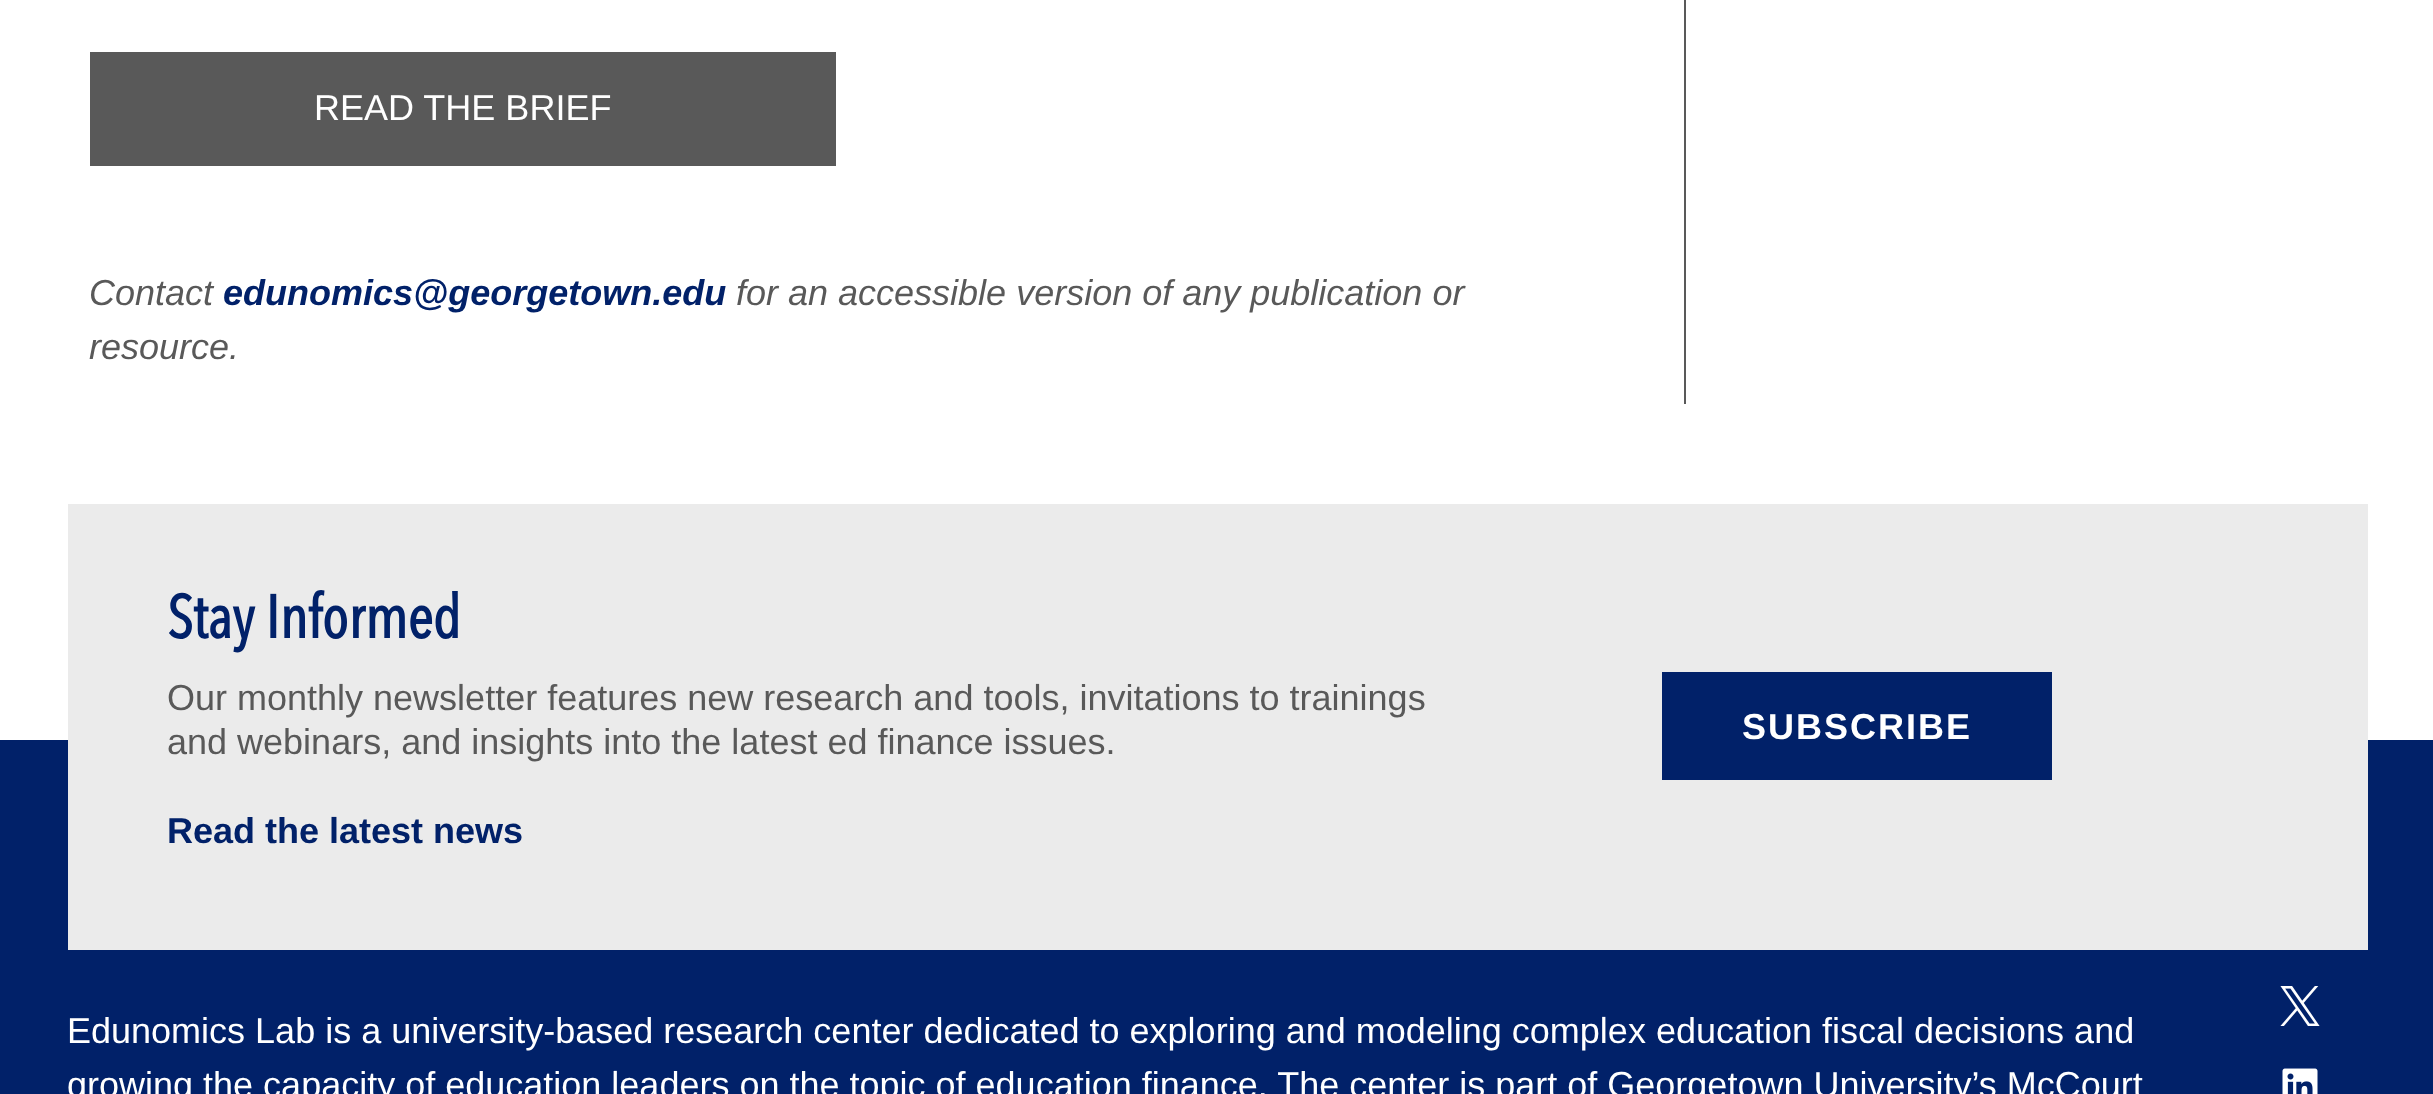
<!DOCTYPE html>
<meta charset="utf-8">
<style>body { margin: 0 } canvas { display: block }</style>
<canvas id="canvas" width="2433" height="1094"></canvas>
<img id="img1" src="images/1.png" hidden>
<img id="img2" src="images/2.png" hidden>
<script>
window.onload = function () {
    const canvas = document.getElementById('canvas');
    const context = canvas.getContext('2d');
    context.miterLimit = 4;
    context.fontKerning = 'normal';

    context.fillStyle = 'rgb(255, 255, 255)';
    context.fillRect(0, 0, 2433, 1094);
    context.fillStyle = 'rgb(89, 89, 89)';
    context.fillRect(1684, 0, 2, 404);
    context.fillRect(90, 52, 746, 114);
    context.fillStyle = 'rgb(1, 33, 105)';
    context.fillRect(0, 740, 2433, 354);
    context.fillStyle = 'rgb(235, 235, 235)';
    context.fillRect(68, 504, 2300, 446);
    context.fillStyle = 'rgb(1, 33, 105)';
    context.fillRect(1662, 672, 390, 108);
    context.drawImage(document.getElementById('img1'), 2280, 986, 40, 40);
    context.drawImage(document.getElementById('img2'), 2282, 1068, 36, 26);
    context.font = '36px Liberation Sans';
    context.fillStyle = 'rgb(255, 255, 255)';
    context.fillText('READ THE BRIEF', 314, 120);
    context.font = 'italic 36px Liberation Sans';
    context.fillStyle = 'rgb(89, 89, 89)';
    context.fillText('Contact', 89, 305);
    context.font = 'italic bold 36px Liberation Sans';
    context.fillStyle = 'rgb(1, 33, 105)';
    context.fillText('edunomics@georgetown.edu', 223, 305);
    context.font = 'italic 36px Liberation Sans';
    context.fillStyle = 'rgb(89, 89, 89)';
    context.fillText('for an accessible version of any publication or', 736, 305);
    context.fillText('resource.', 89, 359);
    context.font = 'bold 60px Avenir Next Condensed';
    context.fillStyle = 'rgb(1, 33, 105)';
    context.fillText('Stay Informed', 167, 638);
    context.font = '36px Liberation Sans';
    context.fillStyle = 'rgb(89, 89, 89)';
    context.fillText('Our monthly newsletter features new research and tools, invitations to trainings', 167, 710);
    context.fillText('and webinars, and insights into the latest ed finance issues.', 167, 754);
    context.font = 'bold 36px Liberation Sans';
    context.fillStyle = 'rgb(1, 33, 105)';
    context.fillText('Read the latest news', 167, 843);
    context.letterSpacing = '2px';
    context.fillStyle = 'rgb(255, 255, 255)';
    context.fillText('SUBSCRIBE', 1742, 739);
    context.letterSpacing = '0px';
    context.font = '36px Liberation Sans';
    context.fillText('Edunomics Lab is a university-based research center dedicated to exploring and modeling complex education fiscal decisions and', 67, 1043);
    context.fillText('growing the capacity of education leaders on the topic of education finance. The center is part of Georgetown University’s McCourt', 67, 1097);
};
</script>
